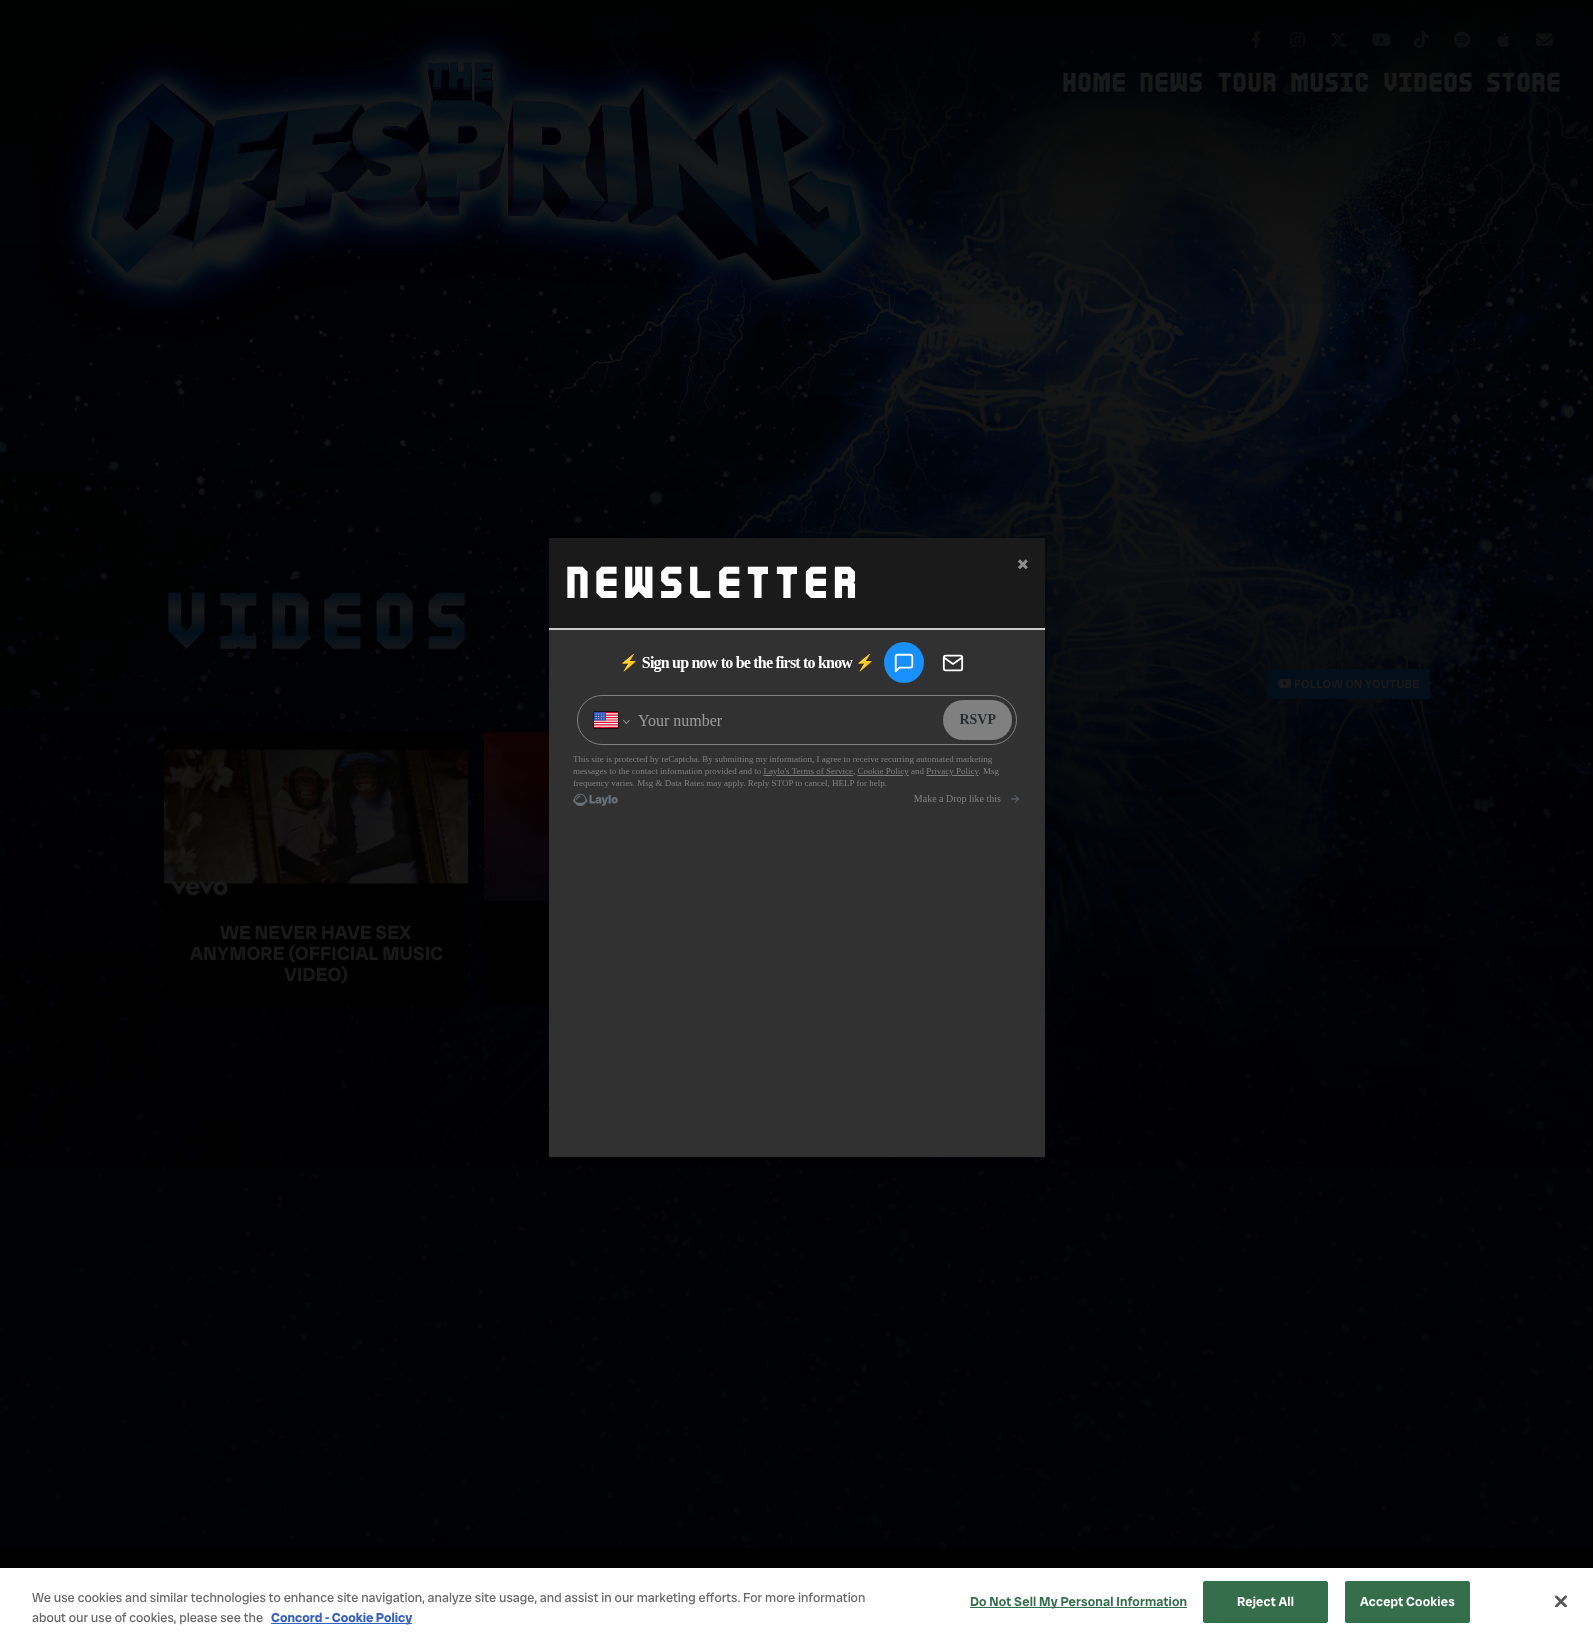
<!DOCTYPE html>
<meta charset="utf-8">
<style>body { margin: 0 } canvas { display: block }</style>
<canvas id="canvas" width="1593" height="1639"></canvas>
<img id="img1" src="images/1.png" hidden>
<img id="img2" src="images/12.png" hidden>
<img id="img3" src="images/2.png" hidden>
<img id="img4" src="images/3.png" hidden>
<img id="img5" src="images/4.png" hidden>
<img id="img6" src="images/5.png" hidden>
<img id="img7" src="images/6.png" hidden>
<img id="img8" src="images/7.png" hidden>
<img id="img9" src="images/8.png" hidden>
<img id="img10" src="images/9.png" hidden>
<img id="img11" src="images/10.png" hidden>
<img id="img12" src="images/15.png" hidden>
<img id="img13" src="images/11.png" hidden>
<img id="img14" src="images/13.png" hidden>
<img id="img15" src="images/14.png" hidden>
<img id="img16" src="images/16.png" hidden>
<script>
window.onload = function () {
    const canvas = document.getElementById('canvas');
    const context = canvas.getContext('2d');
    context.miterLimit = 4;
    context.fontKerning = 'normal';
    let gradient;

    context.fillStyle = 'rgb(255, 255, 255)';
    context.fillRect(0, 0, 1593, 1639);
    context.drawImage(document.getElementById('img1'), 0, 243, 1593, 1305);
    context.drawImage(document.getElementById('img2'), 0, 2, 1593, 1164);
    gradient = context.createLinearGradient(797, 0, 797, 341);
    gradient.addColorStop(0, 'rgb(0, 1, 1)');
    gradient.addColorStop(1, 'rgba(0, 1, 1, 0)');
    context.fillStyle = gradient;
    context.fillRect(0, 0, 1593, 304);
    context.drawImage(document.getElementById('img3'), 39, 7, 874, 327);
    context.drawImage(document.getElementById('img4'), 1251, 31, 10, 18);
    context.drawImage(document.getElementById('img5'), 1290, 32, 15, 16);
    context.drawImage(document.getElementById('img6'), 1331, 32, 15, 15);
    context.drawImage(document.getElementById('img7'), 1372, 33, 19, 13);
    context.drawImage(document.getElementById('img8'), 1414, 31, 15, 18);
    context.drawImage(document.getElementById('img9'), 1454, 31, 17, 17);
    context.drawImage(document.getElementById('img10'), 1497, 32, 13, 15);
    context.drawImage(document.getElementById('img11'), 1536, 33, 17, 13);
    context.fillStyle = 'rgb(26, 26, 26)';
    context.fillRect(549, 538, 496, 90);
    context.fillStyle = 'rgb(0, 0, 0)';
    context.fillRect(484, 902, 65, 104);
    context.drawImage(document.getElementById('img12'), 484, 731, 65, 171);
    context.strokeStyle = 'rgba(0, 0, 0, 0.2)';
    context.lineWidth = 2;
    context.strokeRect(548, 537, 498, 621);
    context.fillStyle = 'rgb(204, 204, 204)';
    context.fillRect(549, 628, 496, 2);
    context.fillStyle = 'rgb(49, 49, 49)';
    context.fillRect(549, 630, 496, 527);
    context.drawImage(document.getElementById('img13'), 573, 642, 446, 164);
    context.fillStyle = 'rgb(2, 14, 25)';
    context.fillRect(1268, 669, 162, 30);
    context.drawImage(document.getElementById('img14'), 1278, 679, 14, 9);
    context.fillStyle = 'rgb(0, 0, 0)';
    context.fillRect(164, 731, 304, 275);
    context.drawImage(document.getElementById('img15'), 164, 748, 304, 148);
    context.fillRect(0, 1548, 1593, 20);
    context.fillStyle = 'rgb(56, 96, 190)';
    context.fillRect(271, 1623, 141, 1);
    context.fillStyle = 'rgb(52, 110, 74)';
    context.fillRect(970, 1607, 217, 1);
    context.beginPath();
    context.roundRect(1203.5, 1581.5, 124, 41, 1.5);
    context.fill();
    context.strokeStyle = 'rgb(52, 110, 74)';
    context.lineWidth = 1;
    context.stroke();
    context.beginPath();
    context.roundRect(1345.5, 1581.5, 124, 41, 1.5);
    context.fill();
    context.stroke();
    context.drawImage(document.getElementById('img16'), 1555, 1595, 12, 12);
    context.font = '500 19.25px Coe';
    context.fillStyle = 'rgb(25, 25, 25)';
    context.fillText('HOME', 1062, 88);
    context.fillText('NEWS', 1139, 88);
    context.fillText('TOUR', 1217, 88);
    context.fillText('MUSIC', 1290, 88);
    context.fillText('VIDEOS', 1383, 88);
    context.fillText('STORE', 1486, 88);
    context.font = 'bold 22px Radio Canada Big';
    context.fillStyle = 'rgb(141, 141, 141)';
    context.fillText('×', 1017, 571);
    context.letterSpacing = '4px';
    context.font = '500 32px Coe';
    context.fillStyle = 'rgb(255, 255, 255)';
    context.fillText('Newsletter', 565, 592);
    context.letterSpacing = '7.25px';
    context.font = '500 57.5px Coe';
    gradient = context.createLinearGradient(797, 590, 797, 653);
    gradient.addColorStop(0, 'rgb(2, 14, 25)');
    gradient.addColorStop(0.33, 'rgb(25, 25, 25)');
    gradient.addColorStop(0.67, 'rgb(2, 14, 25)');
    gradient.addColorStop(1, 'rgb(25, 25, 25)');
    context.fillStyle = gradient;
    context.fillText('VIDEOS', 164, 638);
    context.letterSpacing = '0px';
    context.font = 'bold 12px Radio Canada Big';
    context.fillStyle = 'rgb(25, 25, 25)';
    context.fillText('FOLLOW ON YOUTUBE', 1294, 688);
    context.font = 'bold 19.25px Radio Canada Big';
    context.fillText('WE NEVER HAVE SEX', 220, 939);
    context.fillText('ANYMORE (OFFICIAL MUSIC', 190, 960);
    context.fillText('VIDEO)', 284, 981);
    context.font = '13px Radio Canada Big';
    context.fillStyle = 'rgb(105, 105, 105)';
    context.fillText('We use cookies and similar technologies to enhance site navigation, analyze site usage, and assist in our marketing efforts. For more information', 32, 1602);
    context.fillText('about our use of cookies, please see the', 32, 1622);
    context.font = 'bold 13px Radio Canada Big';
    context.fillStyle = 'rgb(56, 96, 190)';
    context.fillText('Concord - Cookie Policy', 271, 1622);
    context.letterSpacing = '0.15px';
    context.font = '600 13px Radio Canada Big';
    context.fillStyle = 'rgb(52, 110, 74)';
    context.fillText('Do Not Sell My Personal Information', 970, 1606);
    context.fillStyle = 'rgb(255, 255, 255)';
    context.fillText('Reject All', 1237, 1606);
    context.fillText('Accept Cookies', 1360, 1606);
};
</script>
